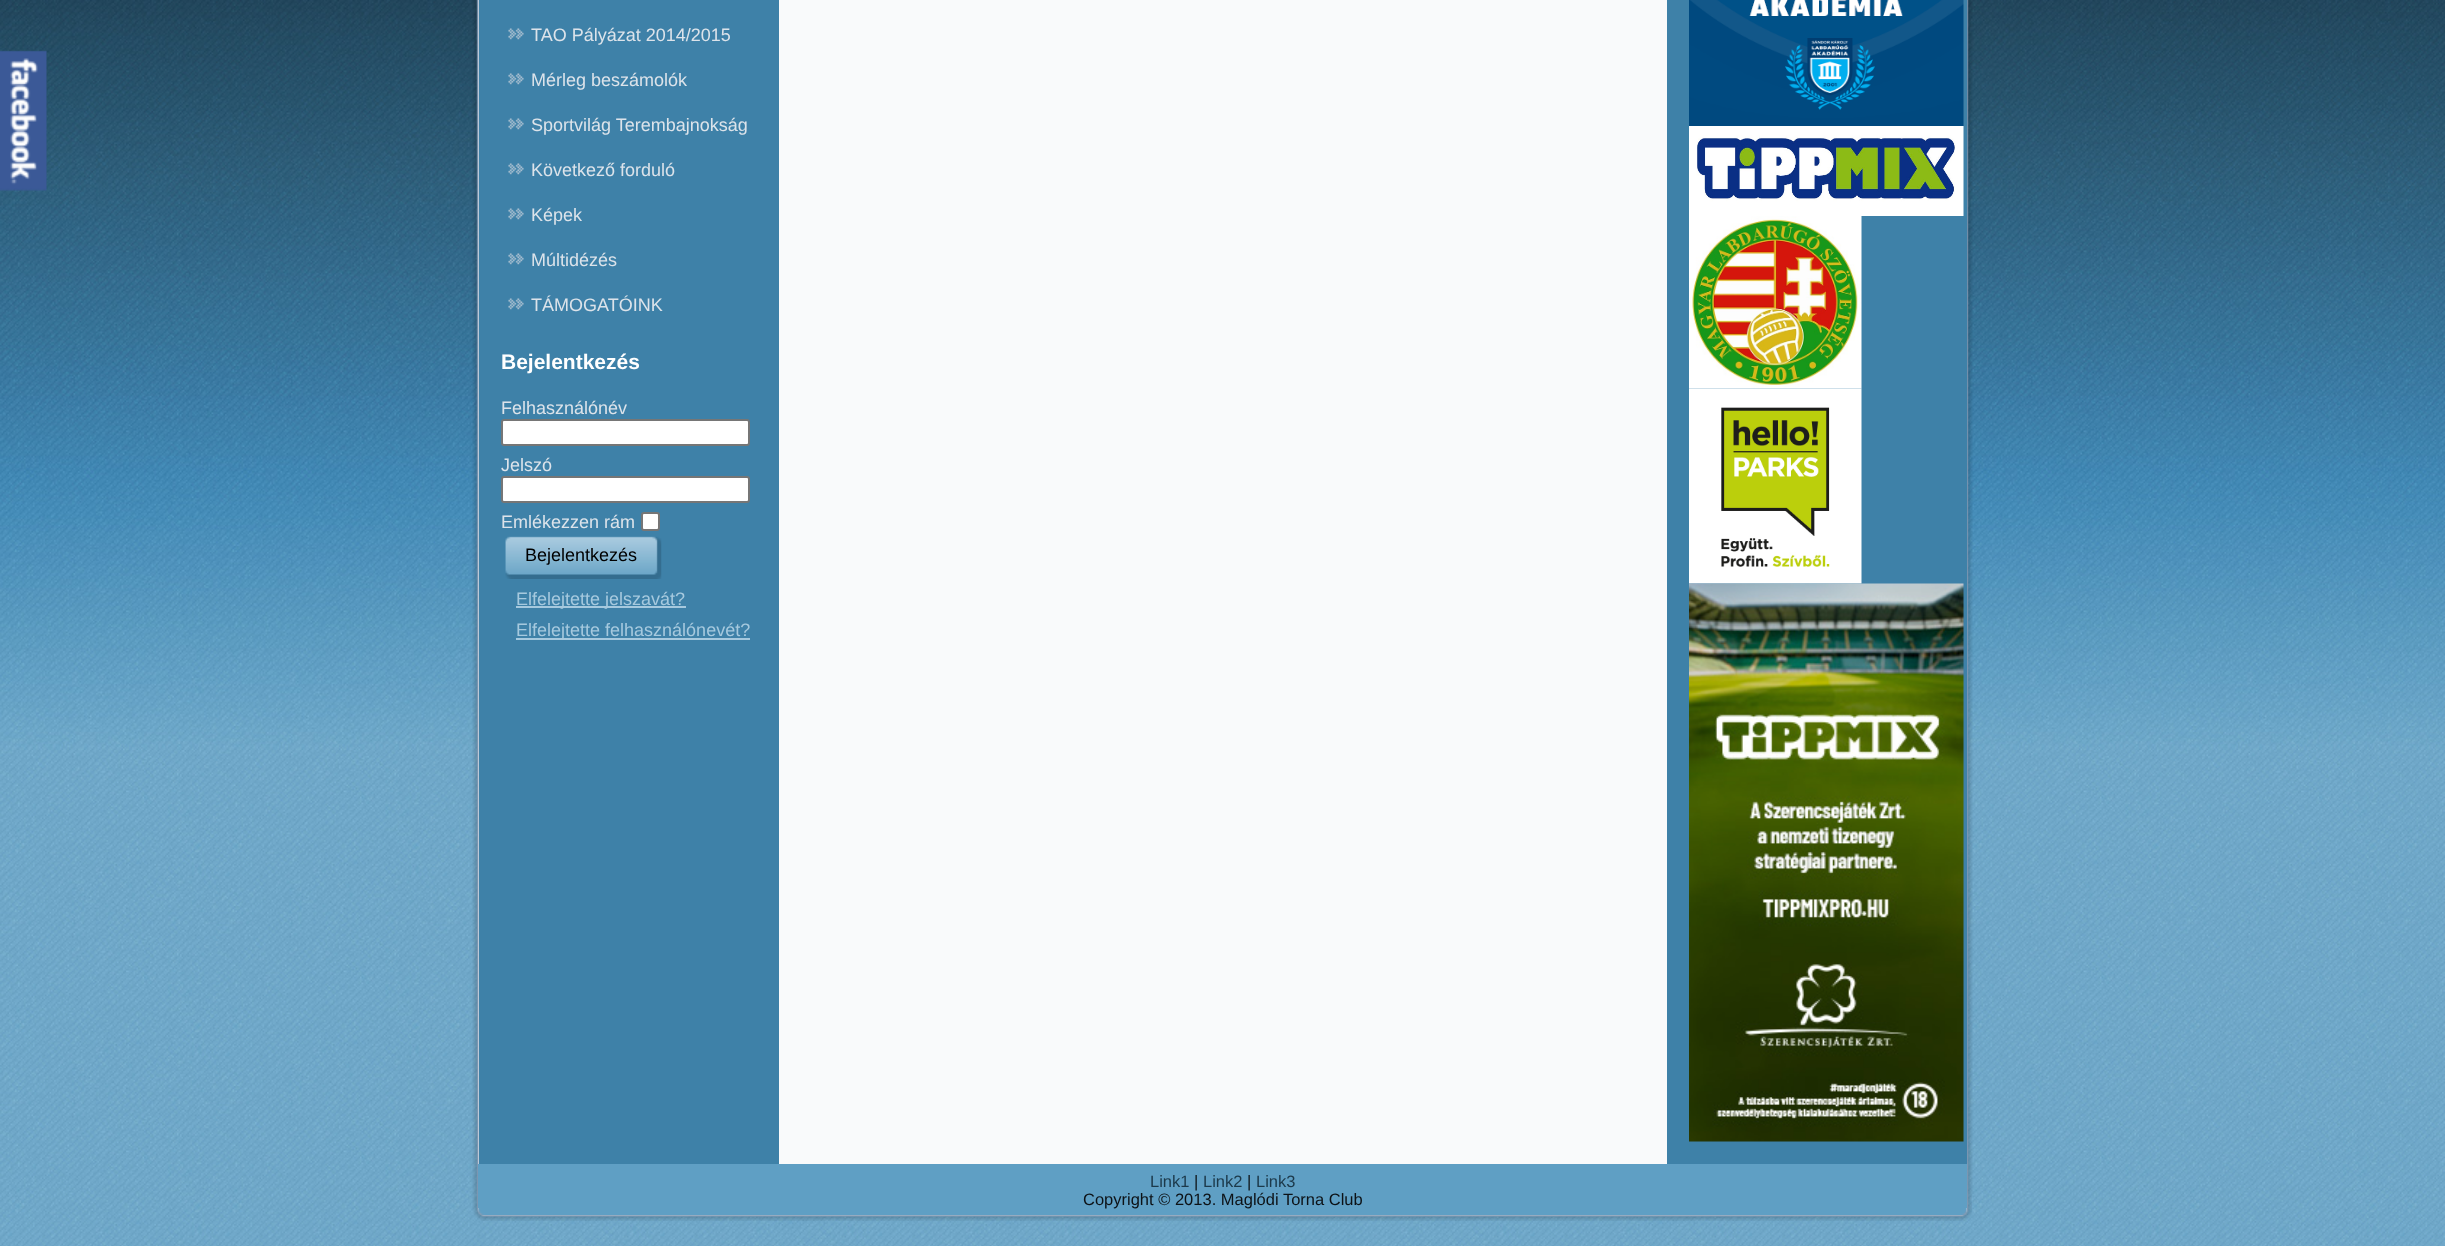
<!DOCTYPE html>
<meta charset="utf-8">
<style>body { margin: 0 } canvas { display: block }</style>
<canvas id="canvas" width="2445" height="1246"></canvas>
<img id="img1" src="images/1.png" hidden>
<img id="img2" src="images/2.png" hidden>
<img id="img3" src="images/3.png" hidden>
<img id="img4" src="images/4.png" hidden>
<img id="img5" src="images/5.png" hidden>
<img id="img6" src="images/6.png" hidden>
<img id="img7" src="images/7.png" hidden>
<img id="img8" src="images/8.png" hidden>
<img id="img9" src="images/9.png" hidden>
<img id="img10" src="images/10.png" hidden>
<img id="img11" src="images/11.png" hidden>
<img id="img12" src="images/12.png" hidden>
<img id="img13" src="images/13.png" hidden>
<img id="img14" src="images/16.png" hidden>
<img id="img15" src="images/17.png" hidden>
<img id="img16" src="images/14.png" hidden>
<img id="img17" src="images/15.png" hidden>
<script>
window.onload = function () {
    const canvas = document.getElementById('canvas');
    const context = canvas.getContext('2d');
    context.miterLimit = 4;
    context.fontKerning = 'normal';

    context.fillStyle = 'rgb(255, 255, 255)';
    context.fillRect(0, 0, 2445, 1246);
    context.drawImage(document.getElementById('img1'), 0, 750, 2445, 496);
    context.drawImage(document.getElementById('img2'), 0, 0, 2445, 750);
    context.drawImage(document.getElementById('img3'), 472, 0, 1195, 1194);
    context.drawImage(document.getElementById('img4'), 1967, 0, 6, 1194);
    context.drawImage(document.getElementById('img5'), 0, 50, 47, 141);
    context.fillStyle = 'rgb(62, 129, 168)';
    context.fillRect(479, 0, 300, 1164);
    context.drawImage(document.getElementById('img6'), 508, 28, 16, 12);
    context.drawImage(document.getElementById('img6'), 508, 73, 16, 12);
    context.drawImage(document.getElementById('img6'), 508, 118, 16, 12);
    context.drawImage(document.getElementById('img6'), 508, 163, 16, 12);
    context.drawImage(document.getElementById('img6'), 508, 208, 16, 12);
    context.drawImage(document.getElementById('img6'), 508, 253, 16, 12);
    context.drawImage(document.getElementById('img6'), 508, 298, 16, 12);
    context.fillStyle = 'rgb(255, 255, 255)';
    context.beginPath();
    context.roundRect(502, 420, 247, 25, 2);
    context.fill();
    context.strokeStyle = 'rgb(118, 118, 118)';
    context.lineWidth = 2;
    context.stroke();
    context.beginPath();
    context.roundRect(502, 477, 247, 25, 2);
    context.fill();
    context.stroke();
    context.beginPath();
    context.roundRect(642, 513, 17, 17, 2);
    context.fill();
    context.stroke();
    context.drawImage(document.getElementById('img7'), 505, 536, 143, 43);
    context.drawImage(document.getElementById('img8'), 648, 536, 14, 43);
    context.fillStyle = 'rgb(166, 201, 222)';
    context.fillRect(516, 606, 170, 2);
    context.fillRect(516, 638, 234, 2);
    context.fillStyle = 'rgb(62, 129, 168)';
    context.fillRect(1667, 0, 300, 1164);
    context.drawImage(document.getElementById('img9'), 1689, 0, 275, 126);
    context.drawImage(document.getElementById('img10'), 1689, 126, 275, 90);
    context.drawImage(document.getElementById('img11'), 1689, 216, 173, 173);
    context.drawImage(document.getElementById('img12'), 1689, 388, 173, 196);
    context.drawImage(document.getElementById('img13'), 1689, 583, 275, 559);
    context.drawImage(document.getElementById('img14'), 472, 1194, 1474, 27);
    context.drawImage(document.getElementById('img15'), 1945, 1194, 27, 27);
    context.fillStyle = 'rgb(95, 159, 196)';
    context.fillRect(478, 1164, 1489, 44);
    context.drawImage(document.getElementById('img16'), 478, 1208, 1481, 7);
    context.drawImage(document.getElementById('img17'), 1959, 1208, 8, 7);
    context.font = '18px Liberation Sans';
    context.fillStyle = 'rgb(220, 227, 234)';
    context.fillText('TAO Pályázat 2014/2015', 531, 41);
    context.fillText('Mérleg beszámolók', 531, 86);
    context.fillText('Sportvilág Terembajnokság', 531, 131);
    context.fillText('Következő forduló', 531, 176);
    context.fillText('Képek', 531, 221);
    context.fillText('Múltidézés', 531, 266);
    context.fillText('TÁMOGATÓINK', 531, 311);
    context.font = 'bold 21px Liberation Sans';
    context.fillStyle = 'rgb(255, 255, 255)';
    context.fillText('Bejelentkezés', 501, 369);
    context.font = '18px Liberation Sans';
    context.fillStyle = 'rgb(220, 227, 234)';
    context.fillText('Felhasználónév', 501, 414);
    context.fillText('Jelszó', 501, 471);
    context.fillText('Emlékezzen rám', 501, 528);
    context.fillStyle = 'rgb(0, 0, 0)';
    context.fillText('Bejelentkezés', 525, 561);
    context.fillStyle = 'rgb(166, 201, 222)';
    context.fillText('Elfelejtette jelszavát?', 516, 605);
    context.fillText('Elfelejtette felhasználónevét?', 516, 636);
    context.font = '16.5px Liberation Sans';
    context.fillStyle = 'rgb(28, 57, 74)';
    context.fillText('Link1', 1150, 1187);
    context.fillStyle = 'rgb(13, 18, 22)';
    context.fillText('|', 1194, 1187);
    context.fillStyle = 'rgb(28, 57, 74)';
    context.fillText('Link2', 1203, 1187);
    context.fillStyle = 'rgb(13, 18, 22)';
    context.fillText('|', 1247, 1187);
    context.fillStyle = 'rgb(28, 57, 74)';
    context.fillText('Link3', 1256, 1187);
    context.fillStyle = 'rgb(13, 18, 22)';
    context.fillText('Copyright © 2013. Maglódi Torna Club', 1083, 1205);
};
</script>
